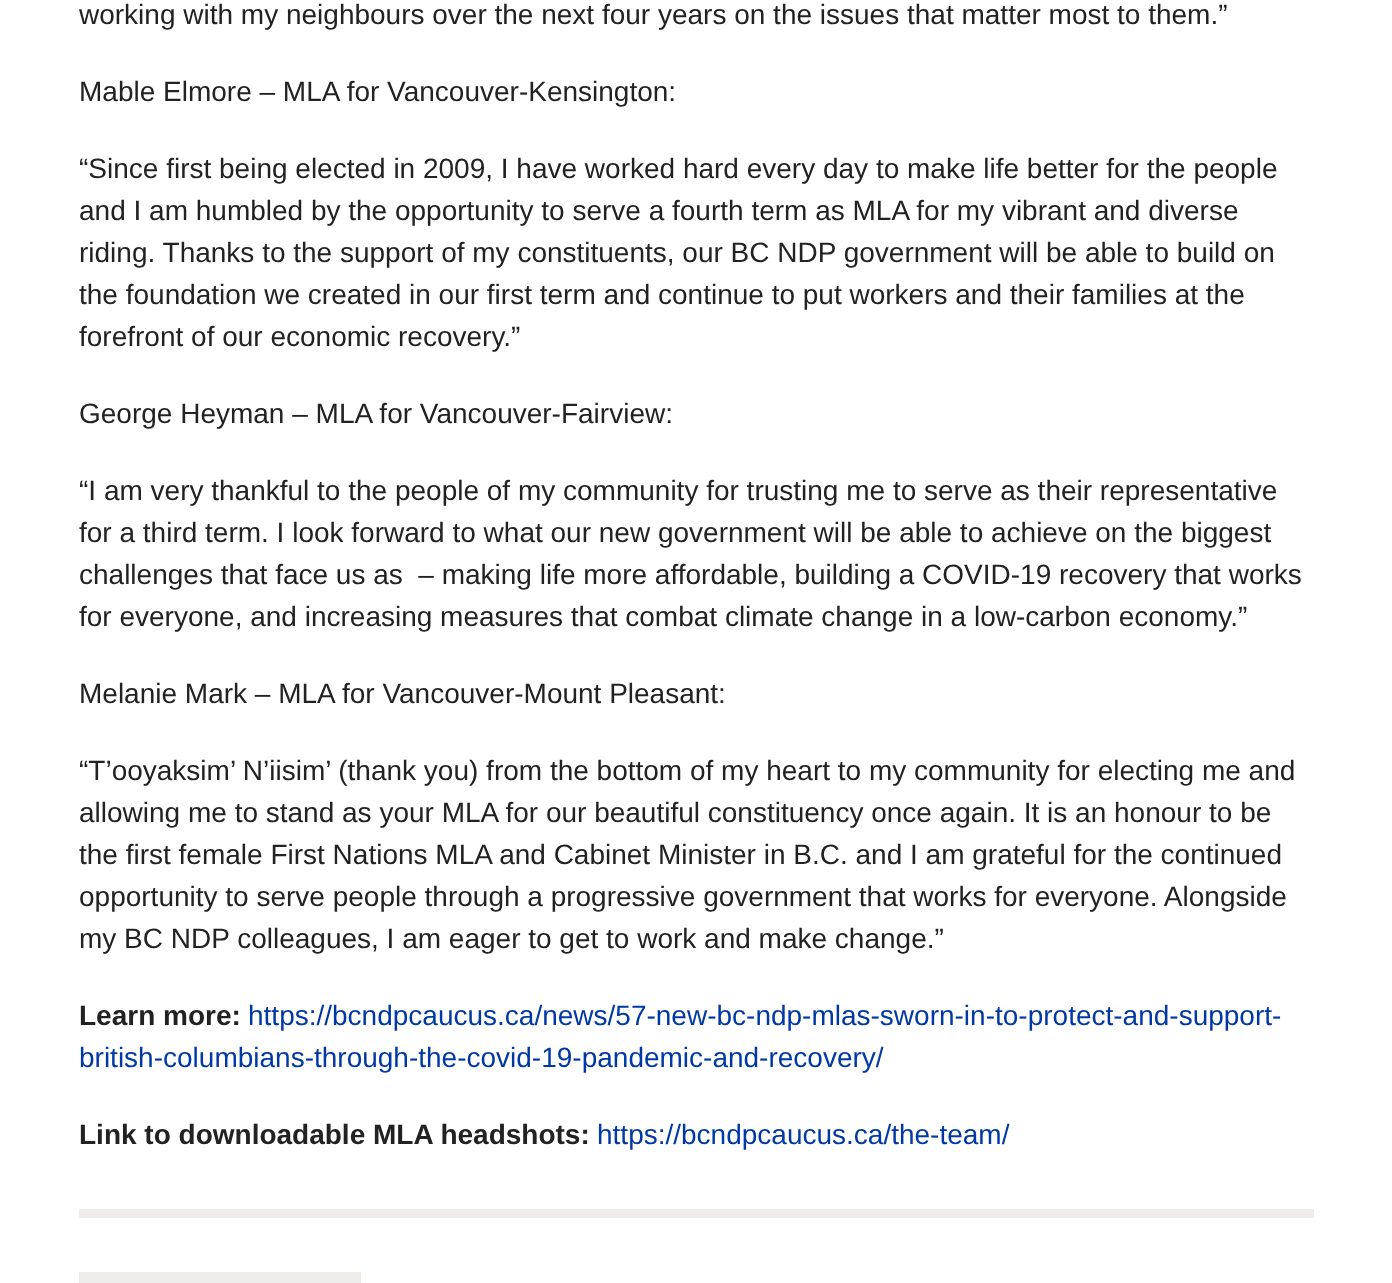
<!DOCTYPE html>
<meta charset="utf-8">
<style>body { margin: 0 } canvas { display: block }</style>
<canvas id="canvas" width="1392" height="1283"></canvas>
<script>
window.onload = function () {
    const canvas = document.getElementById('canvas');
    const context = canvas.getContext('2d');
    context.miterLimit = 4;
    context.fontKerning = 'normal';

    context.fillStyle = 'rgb(255, 255, 255)';
    context.fillRect(0, 0, 1392, 1283);
    context.fillStyle = 'rgb(240, 236, 233)';
    context.fillRect(79, 1209, 1235, 9);
    context.fillRect(79, 1272, 282, 11);
    context.font = '28px Liberation Sans';
    context.fillStyle = 'rgb(34, 34, 34)';
    context.fillText('working with my neighbours over the next four years on the issues that matter most to them.”', 79, 24);
    context.fillText('Mable Elmore – MLA for Vancouver-Kensington:', 79, 101);
    context.fillText('“Since first being elected in 2009, I have worked hard every day to make life better for the people', 79, 178);
    context.fillText('and I am humbled by the opportunity to serve a fourth term as MLA for my vibrant and diverse', 79, 220);
    context.fillText('riding. Thanks to the support of my constituents, our BC NDP government will be able to build on', 79, 262);
    context.fillText('the foundation we created in our first term and continue to put workers and their families at the', 79, 304);
    context.fillText('forefront of our economic recovery.”', 79, 346);
    context.fillText('George Heyman – MLA for Vancouver-Fairview:', 79, 423);
    context.fillText('“I am very thankful to the people of my community for trusting me to serve as their representative', 79, 500);
    context.fillText('for a third term. I look forward to what our new government will be able to achieve on the biggest', 79, 542);
    context.fillText('challenges that face us as  – making life more affordable, building a COVID-19 recovery that works', 79, 584);
    context.fillText('for everyone, and increasing measures that combat climate change in a low-carbon economy.”', 79, 626);
    context.fillText('Melanie Mark – MLA for Vancouver-Mount Pleasant:', 79, 703);
    context.fillText('“T’ooyaksim’ N’iisim’ (thank you) from the bottom of my heart to my community for electing me and', 79, 780);
    context.fillText('allowing me to stand as your MLA for our beautiful constituency once again. It is an honour to be', 79, 822);
    context.fillText('the first female First Nations MLA and Cabinet Minister in B.C. and I am grateful for the continued', 79, 864);
    context.fillText('opportunity to serve people through a progressive government that works for everyone. Alongside', 79, 906);
    context.fillText('my BC NDP colleagues, I am eager to get to work and make change.”', 79, 948);
    context.font = 'bold 28px Liberation Sans';
    context.fillText('Learn more:', 79, 1025);
    context.font = '28px Liberation Sans';
    context.fillStyle = 'rgb(0, 57, 165)';
    context.fillText('https://bcndpcaucus.ca/news/57-new-bc-ndp-mlas-sworn-in-to-protect-and-support-', 248, 1025);
    context.fillText('british-columbians-through-the-covid-19-pandemic-and-recovery/', 79, 1067);
    context.font = 'bold 28px Liberation Sans';
    context.fillStyle = 'rgb(34, 34, 34)';
    context.fillText('Link to downloadable MLA headshots:', 79, 1144);
    context.font = '28px Liberation Sans';
    context.fillStyle = 'rgb(0, 57, 165)';
    context.fillText('https://bcndpcaucus.ca/the-team/', 597, 1144);
};
</script>
